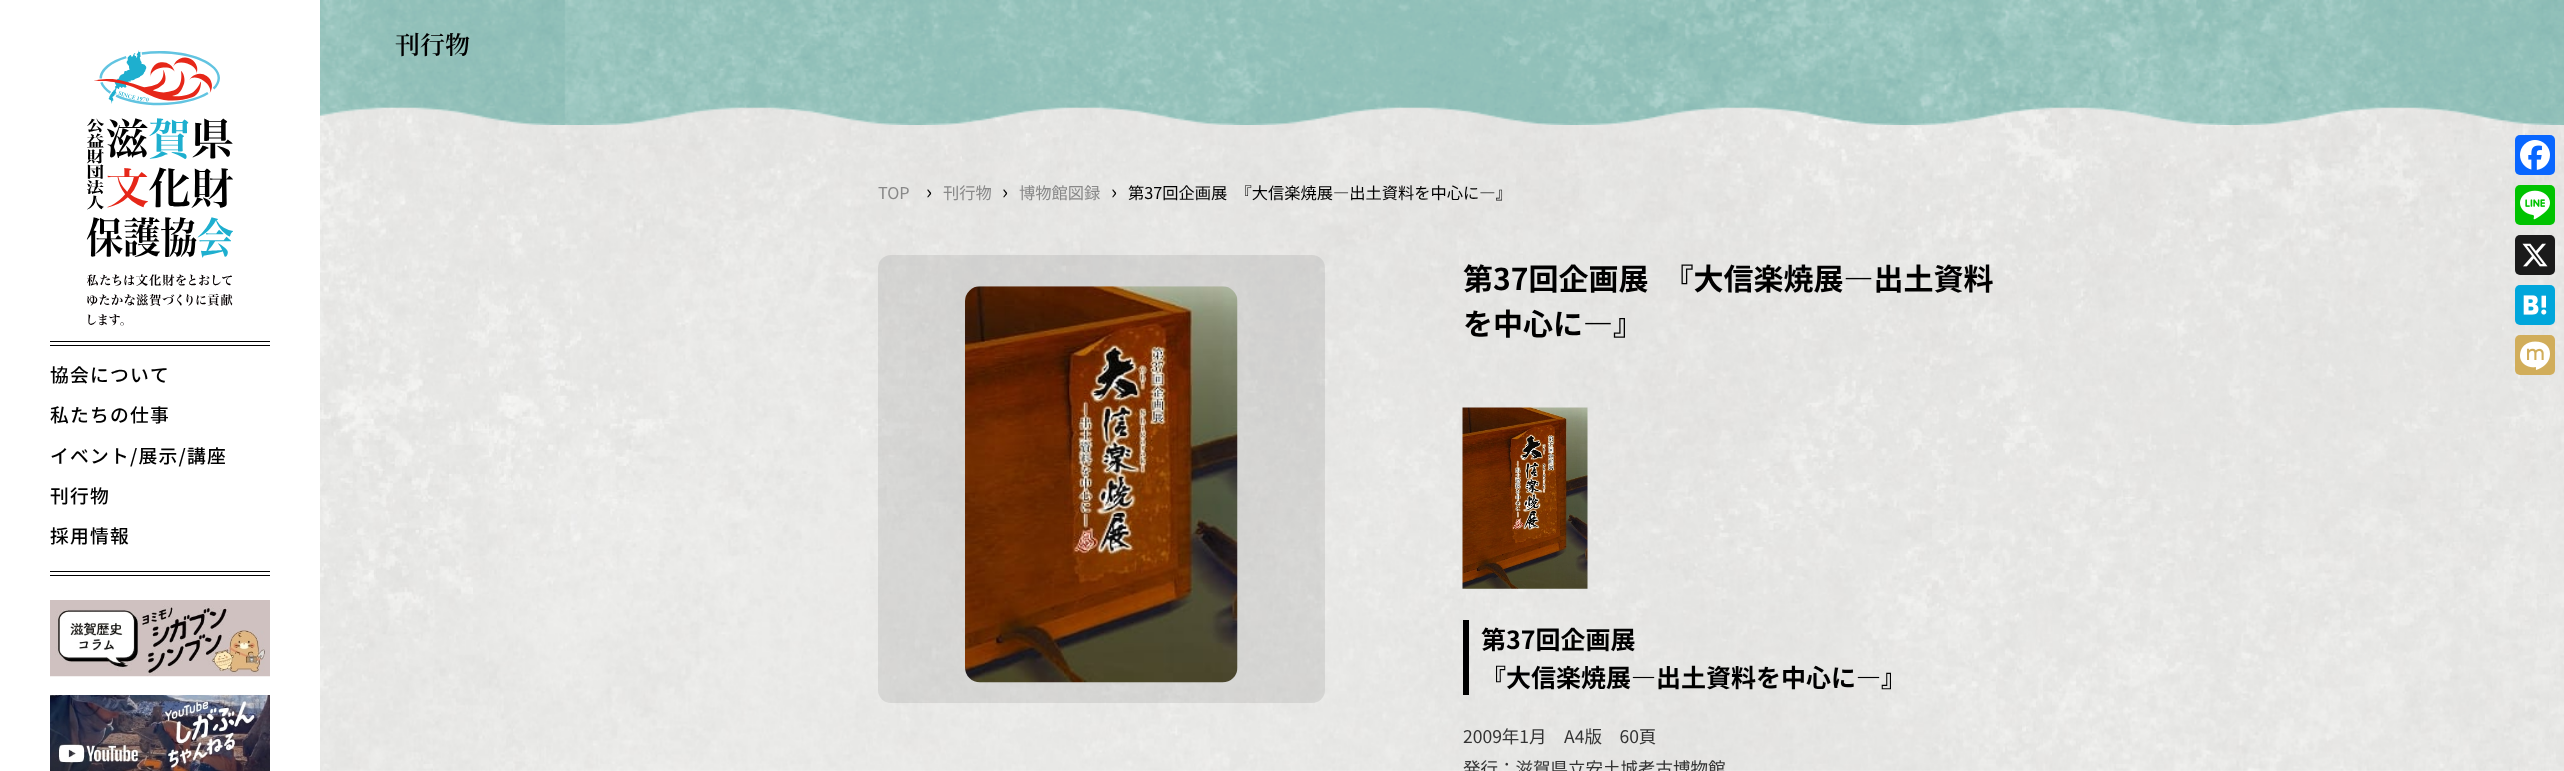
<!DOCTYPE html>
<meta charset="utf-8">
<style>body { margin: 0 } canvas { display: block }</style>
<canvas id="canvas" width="2564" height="771"></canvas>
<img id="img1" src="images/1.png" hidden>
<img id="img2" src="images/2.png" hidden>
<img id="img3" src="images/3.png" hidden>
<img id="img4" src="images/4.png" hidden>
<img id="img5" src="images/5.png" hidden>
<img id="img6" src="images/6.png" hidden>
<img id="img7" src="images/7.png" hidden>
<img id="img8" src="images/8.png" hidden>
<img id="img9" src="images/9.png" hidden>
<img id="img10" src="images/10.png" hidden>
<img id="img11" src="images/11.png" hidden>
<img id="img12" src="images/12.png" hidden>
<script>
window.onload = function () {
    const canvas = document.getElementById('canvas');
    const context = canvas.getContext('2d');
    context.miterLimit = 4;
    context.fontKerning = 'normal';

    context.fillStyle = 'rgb(255, 255, 255)';
    context.fillRect(0, 0, 2564, 771);
    context.drawImage(document.getElementById('img1'), 86, 50, 147, 276);
    context.fillStyle = 'rgb(0, 0, 0)';
    context.fillRect(50, 341, 220, 1);
    context.fillRect(50, 345, 220, 1);
    context.fillRect(50, 571, 220, 1);
    context.fillRect(50, 575, 220, 1);
    context.drawImage(document.getElementById('img2'), 50, 600, 220, 77);
    context.drawImage(document.getElementById('img3'), 50, 695, 220, 76);
    context.drawImage(document.getElementById('img4'), 320, 107, 2244, 664);
    context.drawImage(document.getElementById('img5'), 320, 0, 2244, 125);
    context.fillStyle = 'rgba(51, 51, 51, 0.1)';
    context.beginPath();
    context.roundRect(878, 255, 447, 448, 13);
    context.fill();
    context.drawImage(document.getElementById('img6'), 965, 286, 273, 397);
    context.drawImage(document.getElementById('img7'), 1462, 407, 126, 182);
    context.fillStyle = 'rgb(0, 0, 0)';
    context.fillRect(1463, 620, 6, 75);
    context.fillStyle = 'rgb(8, 102, 255)';
    context.beginPath();
    context.roundRect(2515, 135, 40, 40, 5);
    context.fill();
    context.drawImage(document.getElementById('img8'), 2520, 140, 30, 30);
    context.fillStyle = 'rgb(0, 195, 0)';
    context.beginPath();
    context.roundRect(2515, 185, 40, 40, 5);
    context.fill();
    context.drawImage(document.getElementById('img9'), 2520, 190, 30, 30);
    context.fillStyle = 'rgb(26, 26, 26)';
    context.beginPath();
    context.roundRect(2515, 235, 40, 40, 5);
    context.fill();
    context.drawImage(document.getElementById('img10'), 2522, 243, 26, 24);
    context.fillStyle = 'rgb(0, 166, 219)';
    context.beginPath();
    context.roundRect(2515, 285, 40, 40, 5);
    context.fill();
    context.drawImage(document.getElementById('img11'), 2523, 295, 24, 20);
    context.fillStyle = 'rgb(209, 173, 90)';
    context.beginPath();
    context.roundRect(2515, 335, 40, 40, 5);
    context.fill();
    context.drawImage(document.getElementById('img12'), 2520, 341, 30, 29);
    context.letterSpacing = '1.25px';
    context.font = '500 18.75px Noto Sans JP';
    context.fillStyle = 'rgb(0, 0, 0)';
    context.fillText('協会について', 50, 382);
    context.fillText('私たちの仕事', 50, 422);
    context.fillText('イベント/展示/講座', 50, 463);
    context.fillText('刊行物', 50, 503);
    context.fillText('採用情報', 50, 543);
    context.letterSpacing = '0px';
    context.font = '600 25px Noto Serif JP';
    context.fillText('刊行物', 395, 54);
    context.font = '16.25px Noto Sans JP';
    context.fillStyle = 'rgb(136, 136, 136)';
    context.fillText('TOP', 878, 199);
    context.font = '20px Noto Sans JP';
    context.fillStyle = 'rgb(0, 0, 0)';
    context.fillText('›', 926, 199);
    context.font = '16.25px Noto Sans JP';
    context.fillStyle = 'rgb(136, 136, 136)';
    context.fillText('刊行物', 943, 199);
    context.font = '20px Noto Sans JP';
    context.fillStyle = 'rgb(0, 0, 0)';
    context.fillText('›', 1002, 199);
    context.font = '16.25px Noto Sans JP';
    context.fillStyle = 'rgb(136, 136, 136)';
    context.fillText('博物館図録', 1019, 199);
    context.font = '20px Noto Sans JP';
    context.fillStyle = 'rgb(0, 0, 0)';
    context.fillText('›', 1111, 199);
    context.font = '16.25px Noto Sans JP';
    context.fillText('第37回企画展　『大信楽焼展―出土資料を中心に―』', 1128, 199);
    context.font = 'bold 30px Noto Sans JP';
    context.fillText('第37回企画展　『大信楽焼展―出土資料', 1463, 290);
    context.fillText('を中心に―』', 1463, 335);
    context.font = 'bold 25px Noto Sans JP';
    context.fillText('第37回企画展', 1481, 649);
    context.fillText('『大信楽焼展―出土資料を中心に―』', 1481, 687);
    context.font = '17.5px Noto Sans JP';
    context.fillStyle = 'rgb(51, 51, 51)';
    context.fillText('2009年1月　A4版　60頁', 1463, 743);
    context.fillText('発行：滋賀県立安土城考古博物館', 1463, 775);
};
</script>
